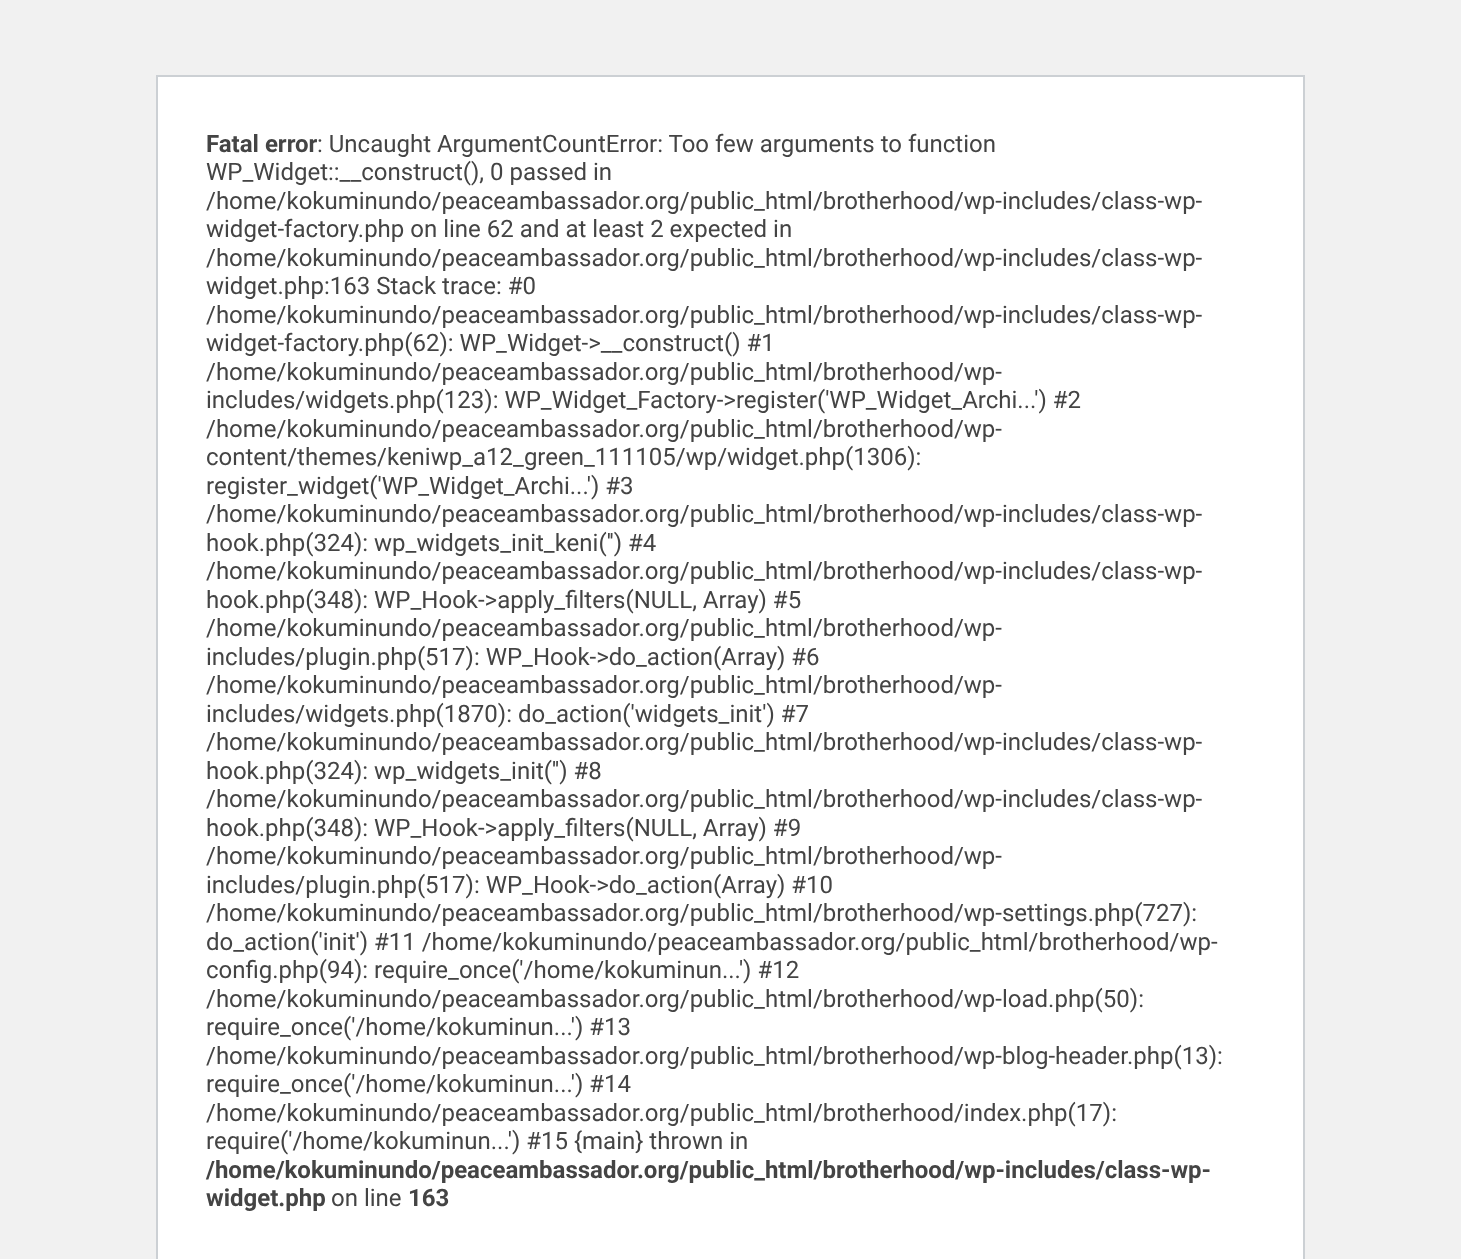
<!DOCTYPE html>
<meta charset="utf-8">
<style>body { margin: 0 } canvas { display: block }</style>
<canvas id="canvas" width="1461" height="1259"></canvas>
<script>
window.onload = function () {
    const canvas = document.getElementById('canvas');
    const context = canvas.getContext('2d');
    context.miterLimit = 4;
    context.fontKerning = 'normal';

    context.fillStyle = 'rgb(241, 241, 241)';
    context.fillRect(0, 0, 1461, 1259);
    context.fillStyle = 'rgb(255, 255, 255)';
    context.beginPath();
    context.rect(157, 76, 1147, 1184);
    context.fill();
    context.strokeStyle = 'rgb(204, 208, 212)';
    context.lineWidth = 2;
    context.stroke();
    context.font = 'bold 24px Roboto';
    context.fillStyle = 'rgb(68, 68, 68)';
    context.fillText('Fatal error', 206, 152);
    context.font = '24px Roboto';
    context.fillText(': Uncaught ArgumentCountError: Too few arguments to function', 317, 152);
    context.fillText('WP_Widget::__construct(), 0 passed in', 206, 180);
    context.fillText('/home/kokuminundo/peaceambassador.org/public_html/brotherhood/wp-includes/class-wp-', 206, 209);
    context.fillText('widget-factory.php on line 62 and at least 2 expected in', 206, 237);
    context.fillText('/home/kokuminundo/peaceambassador.org/public_html/brotherhood/wp-includes/class-wp-', 206, 266);
    context.fillText('widget.php:163 Stack trace: #0', 206, 294);
    context.fillText('/home/kokuminundo/peaceambassador.org/public_html/brotherhood/wp-includes/class-wp-', 206, 323);
    context.fillText('widget-factory.php(62): WP_Widget->__construct() #1', 206, 351);
    context.fillText('/home/kokuminundo/peaceambassador.org/public_html/brotherhood/wp-', 206, 380);
    context.fillText('includes/widgets.php(123): WP_Widget_Factory->register(\'WP_Widget_Archi...\') #2', 206, 408);
    context.fillText('/home/kokuminundo/peaceambassador.org/public_html/brotherhood/wp-', 206, 437);
    context.fillText('content/themes/keniwp_a12_green_111105/wp/widget.php(1306):', 206, 465);
    context.fillText('register_widget(\'WP_Widget_Archi...\') #3', 206, 494);
    context.fillText('/home/kokuminundo/peaceambassador.org/public_html/brotherhood/wp-includes/class-wp-', 206, 522);
    context.fillText('hook.php(324): wp_widgets_init_keni(\'\') #4', 206, 551);
    context.fillText('/home/kokuminundo/peaceambassador.org/public_html/brotherhood/wp-includes/class-wp-', 206, 579);
    context.fillText('hook.php(348): WP_Hook->apply_filters(NULL, Array) #5', 206, 608);
    context.fillText('/home/kokuminundo/peaceambassador.org/public_html/brotherhood/wp-', 206, 636);
    context.fillText('includes/plugin.php(517): WP_Hook->do_action(Array) #6', 206, 665);
    context.fillText('/home/kokuminundo/peaceambassador.org/public_html/brotherhood/wp-', 206, 693);
    context.fillText('includes/widgets.php(1870): do_action(\'widgets_init\') #7', 206, 722);
    context.fillText('/home/kokuminundo/peaceambassador.org/public_html/brotherhood/wp-includes/class-wp-', 206, 750);
    context.fillText('hook.php(324): wp_widgets_init(\'\') #8', 206, 779);
    context.fillText('/home/kokuminundo/peaceambassador.org/public_html/brotherhood/wp-includes/class-wp-', 206, 807);
    context.fillText('hook.php(348): WP_Hook->apply_filters(NULL, Array) #9', 206, 836);
    context.fillText('/home/kokuminundo/peaceambassador.org/public_html/brotherhood/wp-', 206, 864);
    context.fillText('includes/plugin.php(517): WP_Hook->do_action(Array) #10', 206, 893);
    context.fillText('/home/kokuminundo/peaceambassador.org/public_html/brotherhood/wp-settings.php(727):', 206, 921);
    context.fillText('do_action(\'init\') #11 /home/kokuminundo/peaceambassador.org/public_html/brotherhood/wp-', 206, 950);
    context.fillText('config.php(94): require_once(\'/home/kokuminun...\') #12', 206, 978);
    context.fillText('/home/kokuminundo/peaceambassador.org/public_html/brotherhood/wp-load.php(50):', 206, 1007);
    context.fillText('require_once(\'/home/kokuminun...\') #13', 206, 1035);
    context.fillText('/home/kokuminundo/peaceambassador.org/public_html/brotherhood/wp-blog-header.php(13):', 206, 1064);
    context.fillText('require_once(\'/home/kokuminun...\') #14', 206, 1092);
    context.fillText('/home/kokuminundo/peaceambassador.org/public_html/brotherhood/index.php(17):', 206, 1121);
    context.fillText('require(\'/home/kokuminun...\') #15 {main} thrown in', 206, 1149);
    context.font = 'bold 24px Roboto';
    context.fillText('/home/kokuminundo/peaceambassador.org/public_html/brotherhood/wp-includes/class-wp-', 206, 1178);
    context.fillText('widget.php', 206, 1206);
    context.font = '24px Roboto';
    context.fillText('on line', 331, 1206);
    context.font = 'bold 24px Roboto';
    context.fillText('163', 408, 1206);
};
</script>
